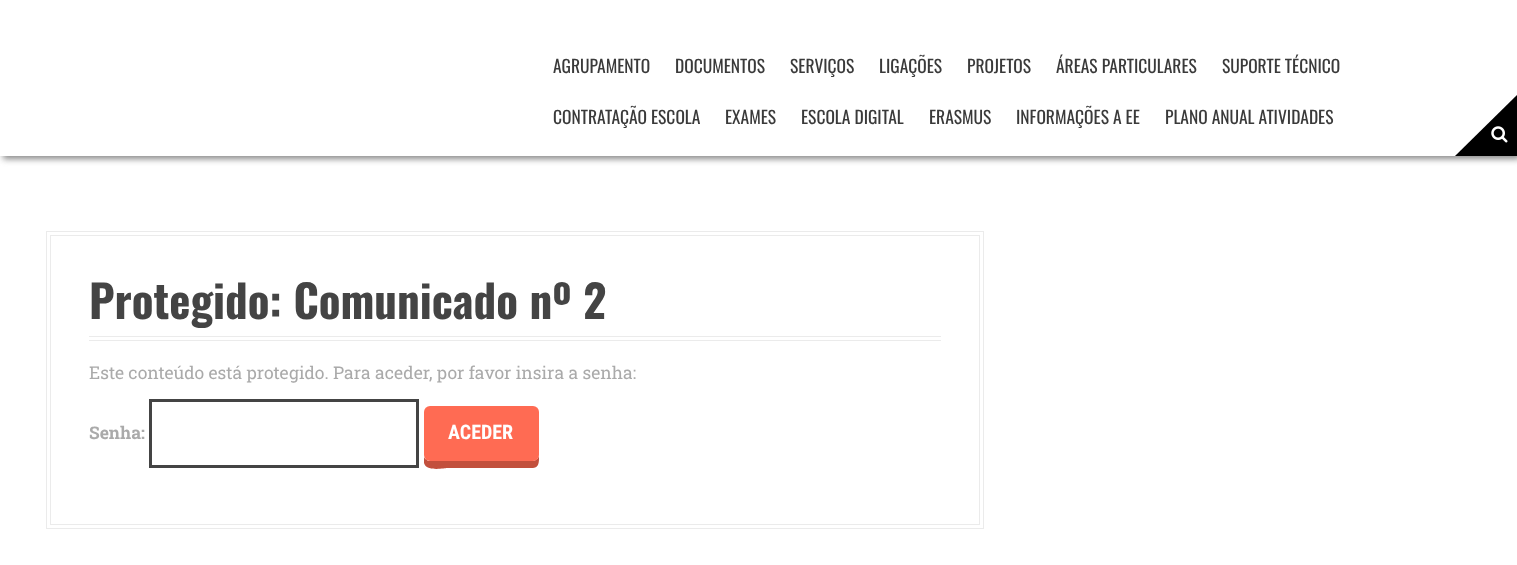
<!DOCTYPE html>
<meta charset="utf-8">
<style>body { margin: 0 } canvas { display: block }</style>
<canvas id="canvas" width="1517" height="565"></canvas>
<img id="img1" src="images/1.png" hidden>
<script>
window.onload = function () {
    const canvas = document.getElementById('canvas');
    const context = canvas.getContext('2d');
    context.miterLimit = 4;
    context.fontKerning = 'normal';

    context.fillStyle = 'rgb(255, 255, 255)';
    context.fillRect(0, 0, 1517, 565);
    context.fillStyle = 'rgb(136, 136, 136)';
    context.filter = 'blur(3px)';
    context.beginPath();
    context.rect(3, 3, 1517, 156);
    context.fill();
    context.filter = 'none';
    context.fillStyle = 'rgb(255, 255, 255)';
    context.fillRect(0, 0, 1517, 156);
    context.fillStyle = 'rgb(0, 0, 0)';
    context.beginPath();
    context.moveTo(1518, 94);
    context.lineTo(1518, 156);
    context.lineTo(1455, 156);
    context.closePath();
    context.fill();
    context.drawImage(document.getElementById('img1'), 1491, 126, 17, 17);
    context.strokeStyle = 'rgb(235, 235, 235)';
    context.strokeRect(46.5, 231.5, 937, 297);
    context.strokeRect(50.5, 235.5, 929, 289);
    context.fillStyle = 'rgb(235, 235, 235)';
    context.fillRect(89, 336, 852, 1);
    context.fillRect(89, 340, 852, 1);
    context.strokeStyle = 'rgb(68, 68, 68)';
    context.lineWidth = 3;
    context.strokeRect(150.5, 400.5, 267, 66);
    context.fillStyle = 'rgb(194, 80, 61)';
    context.beginPath();
    context.moveTo(424, 457);
    context.lineTo(424, 463);
    context.bezierCurveTo(426, 472, 445, 468, 447, 468);
    context.lineTo(533, 468);
    context.bezierCurveTo(540, 468, 539, 459, 539, 455);
    context.lineTo(539, 417);
    context.lineTo(539, 455);
    context.bezierCurveTo(539, 458, 536, 461, 532, 461);
    context.lineTo(430, 461);
    context.bezierCurveTo(427, 461, 425, 459, 424, 457);
    context.closePath();
    context.fill();
    context.fillStyle = 'rgb(255, 107, 83)';
    context.beginPath();
    context.roundRect(424, 406, 115, 55, 6);
    context.fill();
    context.font = '17.5px Oswald';
    context.fillStyle = 'rgb(58, 58, 58)';
    context.fillText('AGRUPAMENTO', 553, 73);
    context.fillText('DOCUMENTOS', 675, 73);
    context.fillText('SERVIÇOS', 790, 73);
    context.fillText('LIGAÇÕES', 879, 73);
    context.fillText('PROJETOS', 967, 73);
    context.fillText('ÁREAS PARTICULARES', 1056, 73);
    context.fillText('SUPORTE TÉCNICO', 1222, 73);
    context.fillText('CONTRATAÇÃO ESCOLA', 553, 124);
    context.fillText('EXAMES', 725, 124);
    context.fillText('ESCOLA DIGITAL', 801, 124);
    context.fillText('ERASMUS', 929, 124);
    context.fillText('INFORMAÇÕES A EE', 1016, 124);
    context.fillText('PLANO ANUAL ATIVIDADES', 1165, 124);
    context.font = 'bold 45px Oswald';
    context.fillStyle = 'rgb(68, 68, 68)';
    context.fillText('Protegido: Comunicado nº 2', 89, 319);
    context.font = '17.5px Roboto Slab';
    context.fillStyle = 'rgb(170, 170, 170)';
    context.fillText('Este conteúdo está protegido. Para aceder, por favor insira a senha:', 89, 379);
    context.font = 'bold 17.5px Roboto Slab';
    context.fillText('Senha:', 89, 439);
    context.font = 'bold 20px Roboto Condensed';
    context.fillStyle = 'rgb(255, 255, 255)';
    context.fillText('ACEDER', 448, 439);
};
</script>
